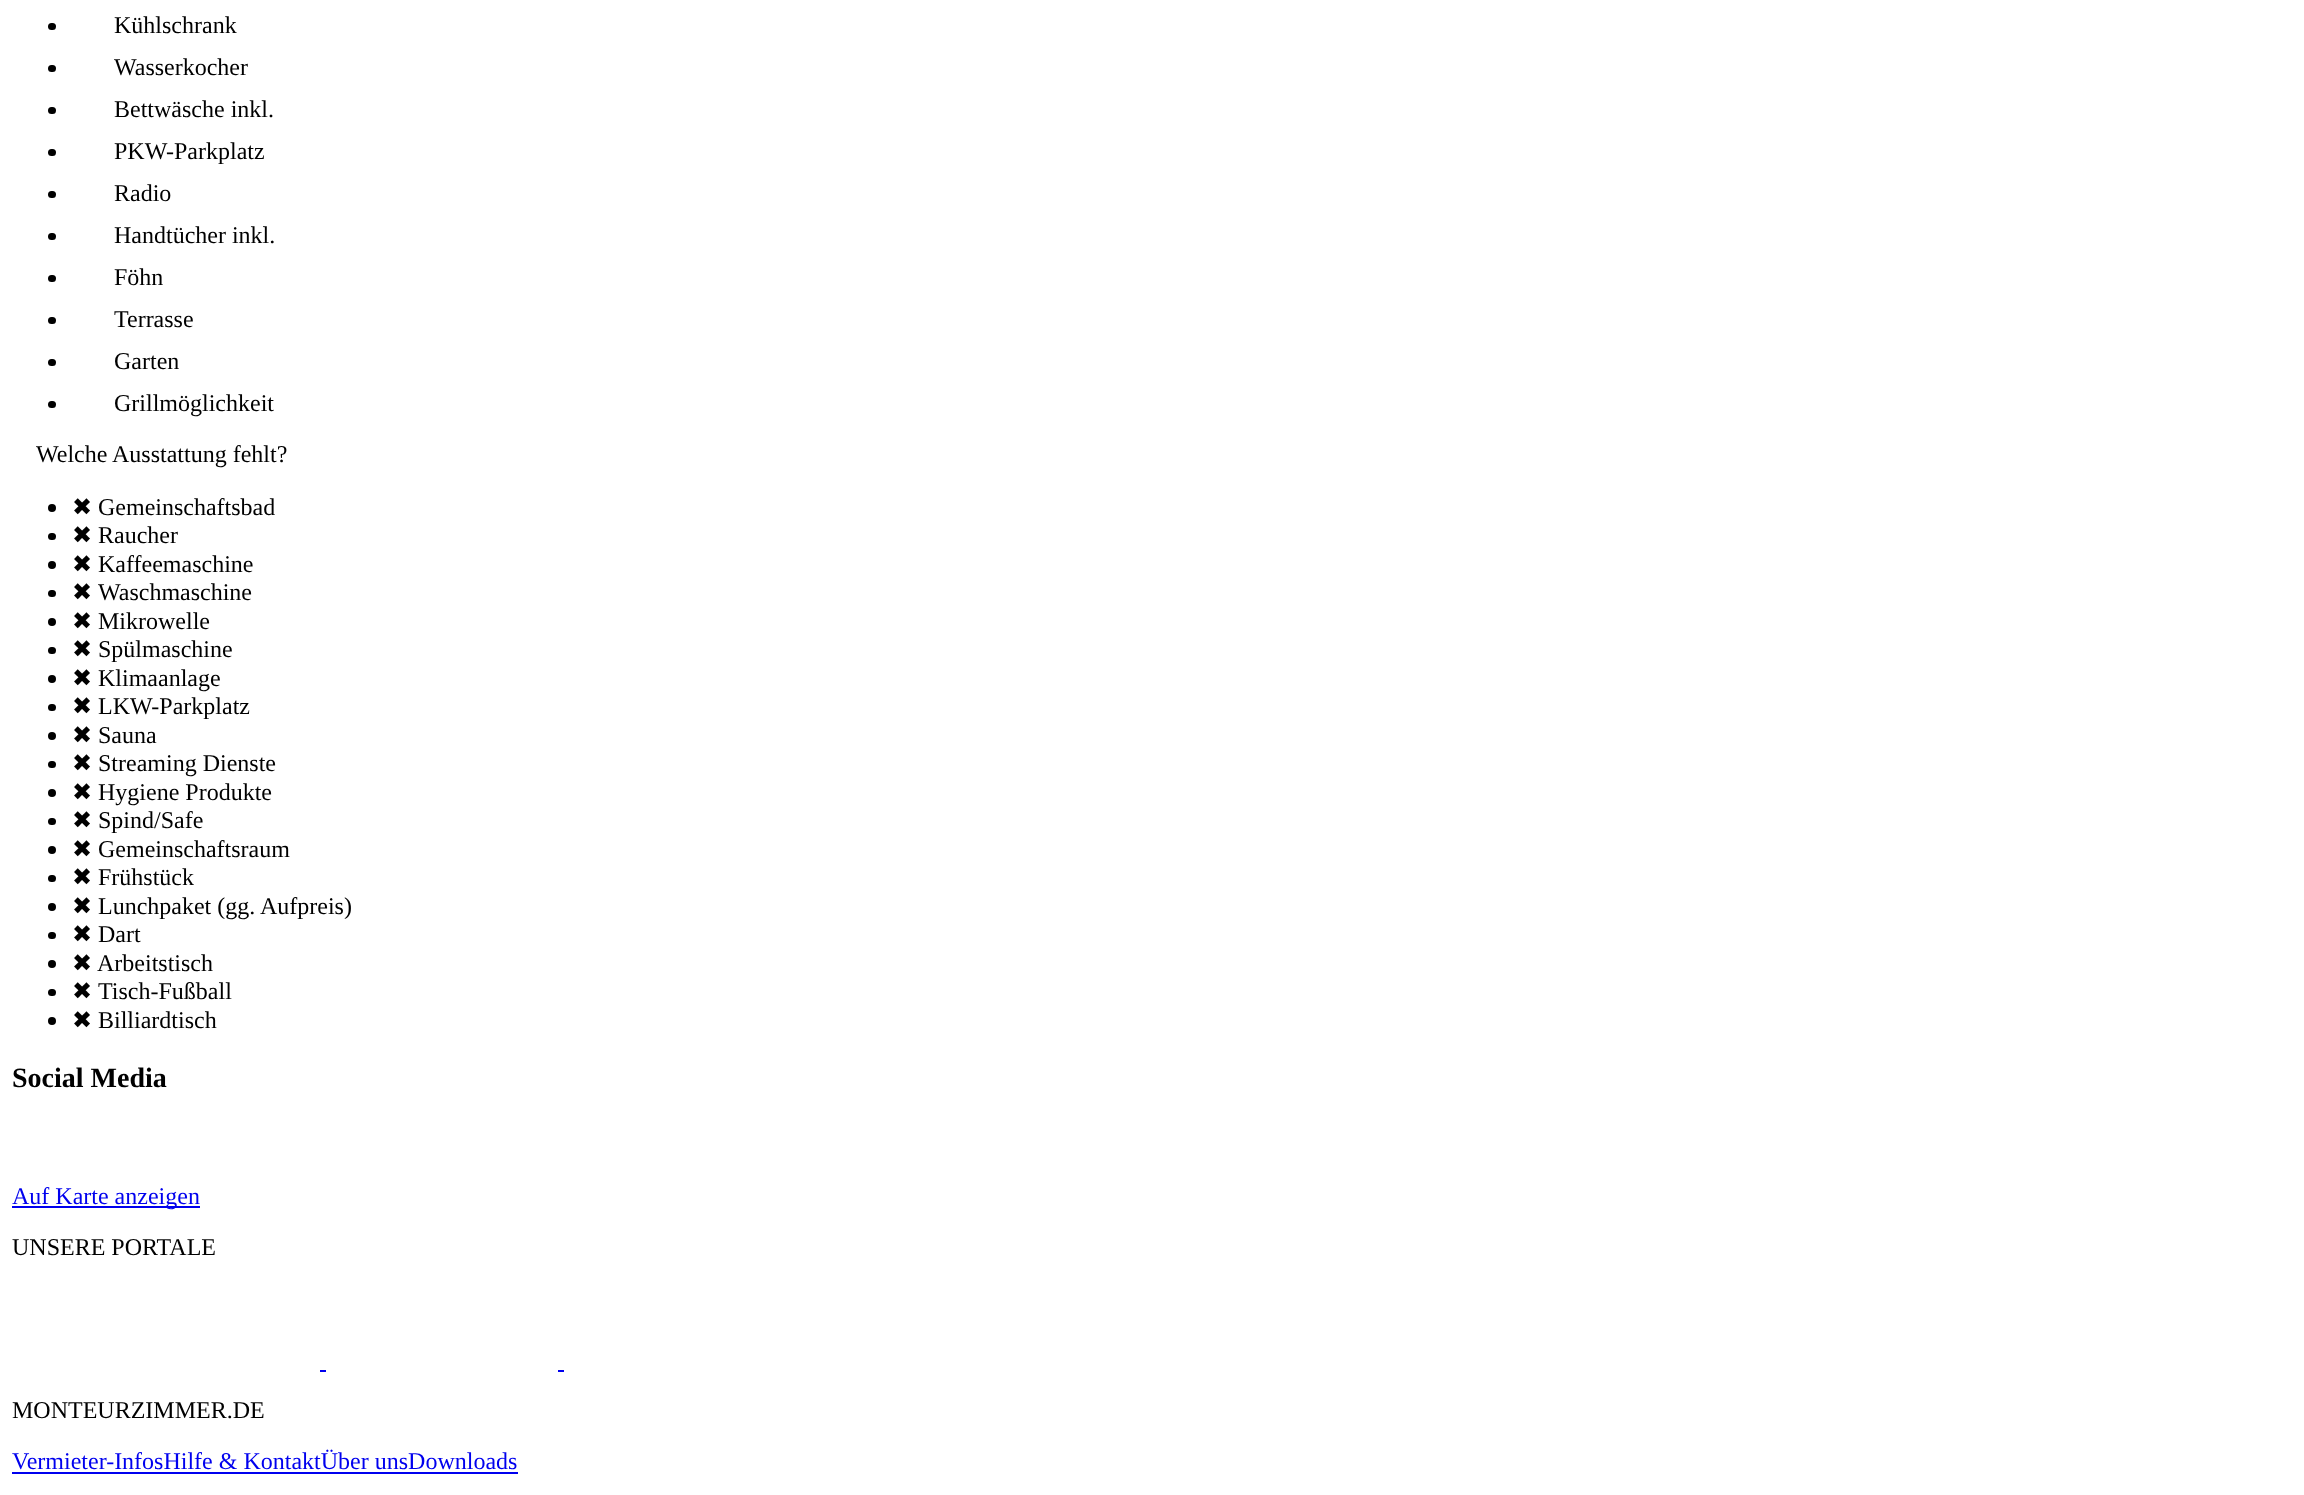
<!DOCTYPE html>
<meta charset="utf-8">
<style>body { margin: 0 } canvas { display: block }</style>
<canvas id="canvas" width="2304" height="1495"></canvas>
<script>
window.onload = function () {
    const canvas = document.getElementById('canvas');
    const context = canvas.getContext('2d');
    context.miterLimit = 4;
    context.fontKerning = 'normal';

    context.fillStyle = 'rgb(255, 255, 255)';
    context.fillRect(0, 0, 2304, 1495);
    context.fillStyle = 'rgb(0, 0, 0)';
    context.beginPath();
    context.roundRect(48, 23, 8, 7, 3.5);
    context.fill();
    context.beginPath();
    context.roundRect(48, 65, 8, 7, 3.5);
    context.fill();
    context.beginPath();
    context.roundRect(48, 107, 8, 7, 3.5);
    context.fill();
    context.beginPath();
    context.roundRect(48, 149, 8, 7, 3.5);
    context.fill();
    context.beginPath();
    context.roundRect(48, 191, 8, 7, 3.5);
    context.fill();
    context.beginPath();
    context.roundRect(48, 233, 8, 7, 3.5);
    context.fill();
    context.beginPath();
    context.roundRect(48, 275, 8, 7, 3.5);
    context.fill();
    context.beginPath();
    context.roundRect(48, 317, 8, 7, 3.5);
    context.fill();
    context.beginPath();
    context.roundRect(48, 359, 8, 7, 3.5);
    context.fill();
    context.beginPath();
    context.roundRect(48, 401, 8, 7, 3.5);
    context.fill();
    context.beginPath();
    context.arc(52, 508, 4, 0, 2 * Math.PI);
    context.fill();
    context.beginPath();
    context.roundRect(48, 533, 8, 7, 3.5);
    context.fill();
    context.beginPath();
    context.arc(52, 565, 4, 0, 2 * Math.PI);
    context.fill();
    context.beginPath();
    context.roundRect(48, 590, 8, 7, 3.5);
    context.fill();
    context.beginPath();
    context.arc(52, 622, 4, 0, 2 * Math.PI);
    context.fill();
    context.beginPath();
    context.roundRect(48, 647, 8, 7, 3.5);
    context.fill();
    context.beginPath();
    context.arc(52, 679, 4, 0, 2 * Math.PI);
    context.fill();
    context.beginPath();
    context.roundRect(48, 704, 8, 7, 3.5);
    context.fill();
    context.beginPath();
    context.arc(52, 736, 4, 0, 2 * Math.PI);
    context.fill();
    context.beginPath();
    context.roundRect(48, 761, 8, 7, 3.5);
    context.fill();
    context.beginPath();
    context.arc(52, 793, 4, 0, 2 * Math.PI);
    context.fill();
    context.beginPath();
    context.roundRect(48, 818, 8, 7, 3.5);
    context.fill();
    context.beginPath();
    context.arc(52, 850, 4, 0, 2 * Math.PI);
    context.fill();
    context.beginPath();
    context.roundRect(48, 875, 8, 7, 3.5);
    context.fill();
    context.beginPath();
    context.arc(52, 907, 4, 0, 2 * Math.PI);
    context.fill();
    context.beginPath();
    context.roundRect(48, 932, 8, 7, 3.5);
    context.fill();
    context.beginPath();
    context.arc(52, 964, 4, 0, 2 * Math.PI);
    context.fill();
    context.beginPath();
    context.roundRect(48, 989, 8, 7, 3.5);
    context.fill();
    context.beginPath();
    context.arc(52, 1021, 4, 0, 2 * Math.PI);
    context.fill();
    context.fillStyle = 'rgb(0, 0, 238)';
    context.fillRect(12, 1206, 188, 2);
    context.fillRect(320, 1370, 6, 2);
    context.fillRect(558, 1370, 6, 2);
    context.fillRect(12, 1472, 506, 2);
    context.font = '24px Liberation Serif';
    context.fillStyle = 'rgb(0, 0, 0)';
    context.fillText('Kühlschrank', 114, 33);
    context.fillText('Wasserkocher', 114, 75);
    context.fillText('Bettwäsche inkl.', 114, 117);
    context.fillText('PKW-Parkplatz', 114, 159);
    context.fillText('Radio', 114, 201);
    context.fillText('Handtücher inkl.', 114, 243);
    context.fillText('Föhn', 114, 285);
    context.fillText('Terrasse', 114, 327);
    context.fillText('Garten', 114, 369);
    context.fillText('Grillmöglichkeit', 114, 411);
    context.fillText('Welche Ausstattung fehlt?', 36, 462);
    context.font = '24px DejaVu Sans';
    context.fillText('✖', 72, 515);
    context.font = '24px Liberation Serif';
    context.fillText('Gemeinschaftsbad', 98, 515);
    context.font = '24px DejaVu Sans';
    context.fillText('✖', 72, 543);
    context.font = '24px Liberation Serif';
    context.fillText('Raucher', 98, 543);
    context.font = '24px DejaVu Sans';
    context.fillText('✖', 72, 572);
    context.font = '24px Liberation Serif';
    context.fillText('Kaffeemaschine', 98, 572);
    context.font = '24px DejaVu Sans';
    context.fillText('✖', 72, 600);
    context.font = '24px Liberation Serif';
    context.fillText('Waschmaschine', 98, 600);
    context.font = '24px DejaVu Sans';
    context.fillText('✖', 72, 629);
    context.font = '24px Liberation Serif';
    context.fillText('Mikrowelle', 98, 629);
    context.font = '24px DejaVu Sans';
    context.fillText('✖', 72, 657);
    context.font = '24px Liberation Serif';
    context.fillText('Spülmaschine', 98, 657);
    context.font = '24px DejaVu Sans';
    context.fillText('✖', 72, 686);
    context.font = '24px Liberation Serif';
    context.fillText('Klimaanlage', 98, 686);
    context.font = '24px DejaVu Sans';
    context.fillText('✖', 72, 714);
    context.font = '24px Liberation Serif';
    context.fillText('LKW-Parkplatz', 98, 714);
    context.font = '24px DejaVu Sans';
    context.fillText('✖', 72, 743);
    context.font = '24px Liberation Serif';
    context.fillText('Sauna', 98, 743);
    context.font = '24px DejaVu Sans';
    context.fillText('✖', 72, 771);
    context.font = '24px Liberation Serif';
    context.fillText('Streaming Dienste', 98, 771);
    context.font = '24px DejaVu Sans';
    context.fillText('✖', 72, 800);
    context.font = '24px Liberation Serif';
    context.fillText('Hygiene Produkte', 98, 800);
    context.font = '24px DejaVu Sans';
    context.fillText('✖', 72, 828);
    context.font = '24px Liberation Serif';
    context.fillText('Spind/Safe', 98, 828);
    context.font = '24px DejaVu Sans';
    context.fillText('✖', 72, 857);
    context.font = '24px Liberation Serif';
    context.fillText('Gemeinschaftsraum', 98, 857);
    context.font = '24px DejaVu Sans';
    context.fillText('✖', 72, 885);
    context.font = '24px Liberation Serif';
    context.fillText('Frühstück', 98, 885);
    context.font = '24px DejaVu Sans';
    context.fillText('✖', 72, 914);
    context.font = '24px Liberation Serif';
    context.fillText('Lunchpaket (gg. Aufpreis)', 98, 914);
    context.font = '24px DejaVu Sans';
    context.fillText('✖', 72, 942);
    context.font = '24px Liberation Serif';
    context.fillText('Dart', 98, 942);
    context.font = '24px DejaVu Sans';
    context.fillText('✖', 72, 971);
    context.font = '24px Liberation Serif';
    context.fillText('Arbeitstisch', 97, 971);
    context.font = '24px DejaVu Sans';
    context.fillText('✖', 72, 999);
    context.font = '24px Liberation Serif';
    context.fillText('Tisch-Fußball', 98, 999);
    context.font = '24px DejaVu Sans';
    context.fillText('✖', 72, 1028);
    context.font = '24px Liberation Serif';
    context.fillText('Billiardtisch', 98, 1028);
    context.font = 'bold 28px Liberation Serif';
    context.fillText('Social Media', 12, 1087);
    context.font = '24px Liberation Serif';
    context.fillStyle = 'rgb(0, 0, 238)';
    context.fillText('Auf Karte anzeigen', 12, 1204);
    context.fillStyle = 'rgb(0, 0, 0)';
    context.fillText('UNSERE PORTALE', 12, 1255);
    context.fillText('MONTEURZIMMER.DE', 12, 1418);
    context.fillStyle = 'rgb(0, 0, 238)';
    context.fillText('Vermieter-InfosHilfe & KontaktÜber unsDownloads', 12, 1469);
};
</script>
